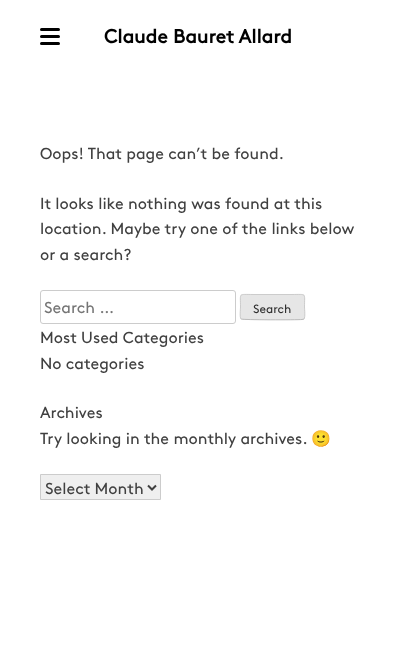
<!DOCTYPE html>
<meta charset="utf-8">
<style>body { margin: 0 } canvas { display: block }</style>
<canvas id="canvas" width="396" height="666"></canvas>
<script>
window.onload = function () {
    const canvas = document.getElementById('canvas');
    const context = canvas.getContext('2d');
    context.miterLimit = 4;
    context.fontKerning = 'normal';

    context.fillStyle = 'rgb(255, 255, 255)';
    context.fillRect(0, 0, 396, 666);
    context.fillStyle = 'rgb(0, 0, 0)';
    context.beginPath();
    context.roundRect(40, 28, 20, 3, 1.5);
    context.fill();
    context.beginPath();
    context.roundRect(40, 35, 20, 3, 1.5);
    context.fill();
    context.beginPath();
    context.roundRect(40, 42, 20, 3, 1.5);
    context.fill();
    context.beginPath();
    context.roundRect(40.5, 290.5, 195, 33, 2.5);
    context.strokeStyle = 'rgb(204, 204, 204)';
    context.stroke();
    context.fillStyle = 'rgb(230, 230, 230)';
    context.beginPath();
    context.roundRect(240, 294, 65, 26, 3);
    context.fill();
    context.beginPath();
    context.moveTo(304, 319);
    context.lineTo(302, 319.5);
    context.bezierCurveTo(297, 320, 242.5, 320, 241.5, 319);
    context.lineTo(241, 319);
    context.strokeStyle = 'rgb(187, 187, 187)';
    context.stroke();
    context.beginPath();
    context.moveTo(241, 319);
    context.bezierCurveTo(239.5, 317, 240.5, 309.5, 240.5, 307);
    context.bezierCurveTo(240.5, 292.5, 238, 294.5, 253, 294.5);
    context.lineTo(292, 294.5);
    context.bezierCurveTo(307, 294.5, 304.5, 292.5, 304.5, 307);
    context.bezierCurveTo(304.5, 309.5, 305.5, 317, 304, 319);
    context.strokeStyle = 'rgb(204, 204, 204)';
    context.stroke();
    context.fillStyle = 'rgb(239, 239, 239)';
    context.beginPath();
    context.rect(40.5, 474.5, 120, 25);
    context.fill();
    context.stroke();
    context.beginPath();
    context.moveTo(148, 485.5);
    context.lineTo(152, 489.5);
    context.lineTo(156, 485.5);
    context.strokeStyle = 'rgb(64, 64, 64)';
    context.lineWidth = 2;
    context.stroke();
    context.font = 'bold 19.25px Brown';
    context.fillStyle = 'rgb(0, 0, 0)';
    context.fillText('Claude Bauret Allard', 104, 43);
    context.font = '16px Brown';
    context.fillStyle = 'rgb(64, 64, 64)';
    context.fillText('Oops! That page can’t be found.', 40, 159);
    context.fillText('It looks like nothing was found at this', 40, 209);
    context.fillText('location. Maybe try one of the links below', 40, 234);
    context.fillText('or a search?', 40, 260);
    context.fillStyle = 'rgb(117, 117, 117)';
    context.fillText('Search …', 44, 313);
    context.font = '12px Brown';
    context.fillStyle = 'rgb(46, 46, 46)';
    context.fillText('Search', 253, 313);
    context.font = '16px Brown';
    context.fillStyle = 'rgb(64, 64, 64)';
    context.fillText('Most Used Categories', 40, 343);
    context.fillText('No categories', 40, 369);
    context.fillText('Archives', 40, 418);
    context.fillText('Try looking in the monthly archives.', 40, 444);
    context.font = '16px Noto Color Emoji';
    context.fillText('🙂', 311, 444);
    context.font = '16px Brown';
    context.fillText('Select Month', 45, 494);
};
</script>
